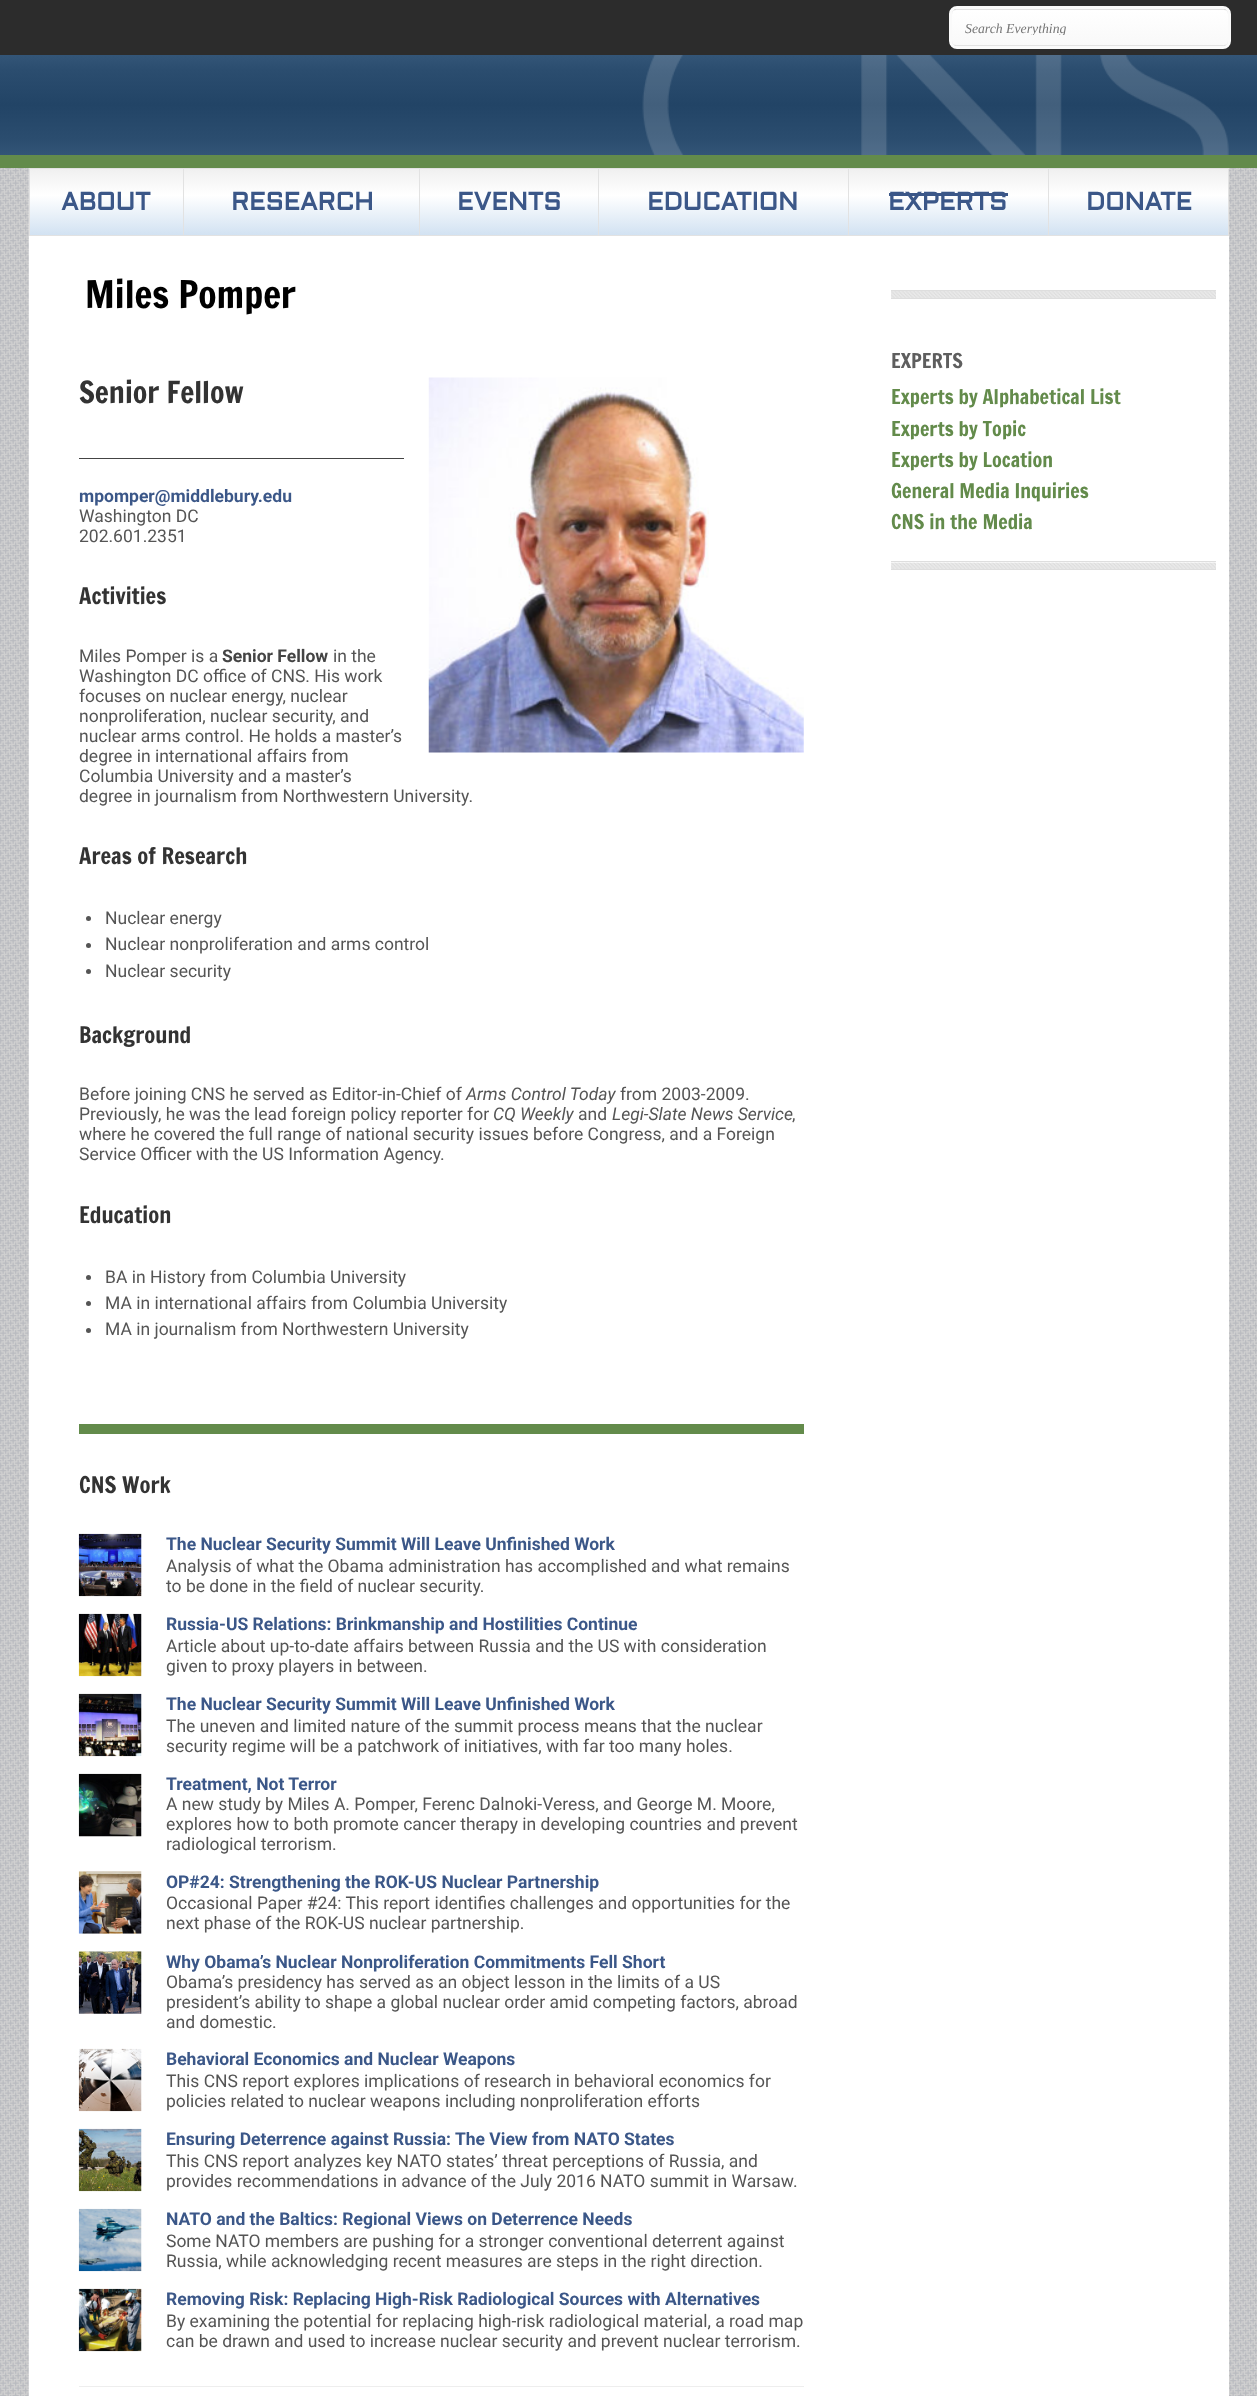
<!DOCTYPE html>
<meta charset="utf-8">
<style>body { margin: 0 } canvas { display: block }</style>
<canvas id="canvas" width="1257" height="2396"></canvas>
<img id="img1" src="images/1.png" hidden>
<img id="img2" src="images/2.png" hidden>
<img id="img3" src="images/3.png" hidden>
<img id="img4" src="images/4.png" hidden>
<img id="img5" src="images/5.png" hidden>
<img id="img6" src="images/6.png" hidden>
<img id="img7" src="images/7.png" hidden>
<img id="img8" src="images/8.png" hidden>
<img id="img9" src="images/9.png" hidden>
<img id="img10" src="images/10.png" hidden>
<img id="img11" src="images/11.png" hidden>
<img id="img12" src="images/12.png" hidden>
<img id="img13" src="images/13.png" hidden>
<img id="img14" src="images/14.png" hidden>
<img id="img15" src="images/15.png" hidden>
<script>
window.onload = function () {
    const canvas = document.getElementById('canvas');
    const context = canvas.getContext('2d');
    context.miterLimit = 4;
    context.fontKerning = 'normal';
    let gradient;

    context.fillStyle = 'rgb(255, 255, 255)';
    context.fillRect(0, 0, 1257, 2396);
    context.drawImage(document.getElementById('img1'), 0, 168, 1257, 2228);
    context.fillStyle = 'rgb(44, 44, 44)';
    context.fillRect(0, 0, 1257, 55);
    gradient = context.createLinearGradient(1090, 10, 1090, 45);
    gradient.addColorStop(0, 'rgb(255, 255, 255)');
    gradient.addColorStop(1, 'rgb(249, 249, 249)');
    context.fillStyle = gradient;
    context.fillRect(952, 10, 276, 35);
    context.beginPath();
    context.roundRect(951.5, 9.5, 277, 36, 4.5);
    context.strokeStyle = 'rgb(226, 226, 226)';
    context.stroke();
    context.beginPath();
    context.roundRect(950.5, 7.5, 279, 40, 6.5);
    context.strokeStyle = 'rgb(250, 250, 250)';
    context.lineWidth = 3;
    context.stroke();
    gradient = context.createLinearGradient(629, 55, 629, 155);
    gradient.addColorStop(0, 'rgb(51, 85, 119)');
    gradient.addColorStop(0.15, 'rgb(43, 77, 111)');
    gradient.addColorStop(0.5, 'rgb(34, 68, 102)');
    gradient.addColorStop(0.85, 'rgb(43, 77, 111)');
    gradient.addColorStop(1, 'rgb(51, 85, 119)');
    context.fillStyle = gradient;
    context.fillRect(0, 55, 1257, 100);
    context.fillStyle = 'rgb(99, 139, 75)';
    context.fillRect(0, 155, 1257, 13);
    context.drawImage(document.getElementById('img2'), 642, 55, 587, 100);
    gradient = context.createLinearGradient(629, 169, 629, 235);
    gradient.addColorStop(0, 'rgb(240, 240, 240)');
    gradient.addColorStop(0.4, 'rgb(255, 255, 255)');
    gradient.addColorStop(1, 'rgb(210, 226, 242)');
    context.fillStyle = gradient;
    context.fillRect(30, 169, 1198, 66);
    context.strokeStyle = 'rgb(226, 226, 226)';
    context.lineWidth = 1;
    context.strokeRect(29.5, 168.5, 1199, 67);
    context.fillStyle = 'rgb(226, 226, 226)';
    context.fillRect(183, 168, 1, 68);
    context.fillRect(419, 168, 1, 68);
    context.fillRect(598, 168, 1, 68);
    context.fillRect(848, 168, 1, 68);
    context.fillStyle = 'rgb(59, 87, 136)';
    context.fillRect(889, 193, 119, 3);
    context.fillStyle = 'rgb(226, 226, 226)';
    context.fillRect(1048, 168, 1, 68);
    context.fillStyle = 'rgb(255, 255, 255)';
    context.fillRect(1228, 236, 1, 2160);
    context.drawImage(document.getElementById('img3'), 428, 377, 376, 376);
    context.fillStyle = 'rgb(68, 68, 68)';
    context.fillRect(79, 458, 325, 1);
    context.fillStyle = 'rgb(85, 85, 85)';
    context.beginPath();
    context.arc(88.5, 918.5, 2.5, 0, 2 * Math.PI);
    context.fill();
    context.beginPath();
    context.arc(88.5, 945.5, 2.5, 0, 2 * Math.PI);
    context.fill();
    context.beginPath();
    context.arc(88.5, 971.5, 2.5, 0, 2 * Math.PI);
    context.fill();
    context.beginPath();
    context.arc(88.5, 1277.5, 2.5, 0, 2 * Math.PI);
    context.fill();
    context.beginPath();
    context.arc(88.5, 1303.5, 2.5, 0, 2 * Math.PI);
    context.fill();
    context.beginPath();
    context.arc(88.5, 1330.5, 2.5, 0, 2 * Math.PI);
    context.fill();
    context.fillStyle = 'rgb(99, 139, 75)';
    context.fillRect(79, 1424, 725, 10);
    context.drawImage(document.getElementById('img4'), 78, 1533, 64, 64);
    context.drawImage(document.getElementById('img5'), 78, 1613, 64, 64);
    context.drawImage(document.getElementById('img6'), 78, 1693, 64, 64);
    context.drawImage(document.getElementById('img7'), 78, 1773, 64, 64);
    context.drawImage(document.getElementById('img8'), 78, 1871, 64, 63);
    context.drawImage(document.getElementById('img9'), 78, 1951, 64, 63);
    context.drawImage(document.getElementById('img10'), 78, 2048, 64, 64);
    context.drawImage(document.getElementById('img11'), 78, 2128, 64, 64);
    context.drawImage(document.getElementById('img12'), 78, 2208, 64, 64);
    context.drawImage(document.getElementById('img13'), 78, 2288, 64, 64);
    context.fillStyle = 'rgb(238, 238, 238)';
    context.fillRect(79, 2386, 725, 1);
    context.fillRect(891, 291, 325, 7);
    context.drawImage(document.getElementById('img14'), 891, 291, 325, 7);
    context.fillStyle = 'rgb(222, 222, 222)';
    context.fillRect(891, 290, 325, 1);
    context.fillRect(891, 298, 325, 1);
    context.fillStyle = 'rgb(238, 238, 238)';
    context.fillRect(891, 563, 325, 6);
    context.drawImage(document.getElementById('img15'), 891, 562, 325, 7);
    context.fillStyle = 'rgb(222, 222, 222)';
    context.fillRect(891, 561, 325, 1);
    context.fillRect(891, 569, 325, 1);
    context.save();
    context.beginPath();
    context.rect(965, 20, 250, 15);
    context.clip();
    context.font = 'italic 13.75px Liberation Serif';
    context.fillStyle = 'rgb(117, 117, 117)';
    context.fillText('Search Everything', 965, 33);
    context.restore();
    context.font = 'bold 25px Aldrich';
    context.fillStyle = 'rgb(59, 87, 136)';
    context.fillText('ABOUT', 61, 210);
    context.fillText('RESEARCH', 231, 210);
    context.fillText('EVENTS', 457, 210);
    context.fillText('EDUCATION', 647, 210);
    context.fillText('EXPERTS', 888, 210);
    context.fillText('DONATE', 1086, 210);
    context.font = '37.5px Francois One';
    context.fillStyle = 'rgb(0, 0, 0)';
    context.fillText('Miles Pomper', 85, 308);
    context.font = '29.75px Francois One';
    context.fillStyle = 'rgb(51, 51, 51)';
    context.fillText('Senior Fellow', 79, 403);
    context.font = 'bold 17.5px Roboto';
    context.fillStyle = 'rgb(59, 87, 136)';
    context.fillText('mpomper@middlebury.edu', 79, 502);
    context.font = '17.5px Roboto';
    context.fillStyle = 'rgb(85, 85, 85)';
    context.fillText('Washington DC', 79, 522);
    context.fillText('202.601.2351', 79, 542);
    context.font = '22.5px Francois One';
    context.fillStyle = 'rgb(51, 51, 51)';
    context.fillText('Activities', 79, 604);
    context.font = '17.5px Roboto';
    context.fillStyle = 'rgb(85, 85, 85)';
    context.fillText('Miles Pomper is a', 79, 662);
    context.font = 'bold 17.5px Roboto';
    context.fillStyle = 'rgb(68, 68, 68)';
    context.fillText('Senior Fellow', 222, 662);
    context.font = '17.5px Roboto';
    context.fillStyle = 'rgb(85, 85, 85)';
    context.fillText('in the', 333, 662);
    context.fillText('Washington DC office of CNS. His work', 79, 682);
    context.fillText('focuses on nuclear energy, nuclear', 79, 702);
    context.fillText('nonproliferation, nuclear security, and', 79, 722);
    context.fillText('nuclear arms control. He holds a master’s', 79, 742);
    context.fillText('degree in international affairs from', 79, 762);
    context.fillText('Columbia University and a master’s', 79, 782);
    context.fillText('degree in journalism from Northwestern University.', 79, 802);
    context.font = '22.5px Francois One';
    context.fillStyle = 'rgb(51, 51, 51)';
    context.fillText('Areas of Research', 79, 864);
    context.font = '17.5px Roboto';
    context.fillStyle = 'rgb(85, 85, 85)';
    context.fillText('Nuclear energy', 105, 924);
    context.fillText('Nuclear nonproliferation and arms control', 105, 950);
    context.fillText('Nuclear security', 105, 977);
    context.font = '22.5px Francois One';
    context.fillStyle = 'rgb(51, 51, 51)';
    context.fillText('Background', 79, 1043);
    context.font = '17.5px Roboto';
    context.fillStyle = 'rgb(85, 85, 85)';
    context.fillText('Before joining CNS he served as Editor-in-Chief of', 79, 1100);
    context.font = 'italic 17.5px Roboto';
    context.fillText('Arms Control Today', 466, 1100);
    context.font = '17.5px Roboto';
    context.fillText('from 2003-2009.', 620, 1100);
    context.fillText('Previously, he was the lead foreign policy reporter for', 79, 1120);
    context.font = 'italic 17.5px Roboto';
    context.fillText('CQ Weekly', 493, 1120);
    context.font = '17.5px Roboto';
    context.fillText('and', 578, 1120);
    context.font = 'italic 17.5px Roboto';
    context.fillText('Legi-Slate News Service', 612, 1120);
    context.font = '17.5px Roboto';
    context.fillText(',', 792, 1120);
    context.fillText('where he covered the full range of national security issues before Congress, and a Foreign', 79, 1140);
    context.fillText('Service Officer with the US Information Agency.', 79, 1160);
    context.font = '22.5px Francois One';
    context.fillStyle = 'rgb(51, 51, 51)';
    context.fillText('Education', 79, 1223);
    context.font = '17.5px Roboto';
    context.fillStyle = 'rgb(85, 85, 85)';
    context.fillText('BA in History from Columbia University', 105, 1283);
    context.fillText('MA in international affairs from Columbia University', 105, 1309);
    context.fillText('MA in journalism from Northwestern University', 105, 1335);
    context.font = '22.5px Francois One';
    context.fillStyle = 'rgb(51, 51, 51)';
    context.fillText('CNS Work', 79, 1493);
    context.font = 'bold 17.5px Roboto';
    context.fillStyle = 'rgb(59, 87, 136)';
    context.fillText('The Nuclear Security Summit Will Leave Unfinished Work', 166, 1550);
    context.font = '17.5px Roboto';
    context.fillStyle = 'rgb(85, 85, 85)';
    context.fillText('Analysis of what the Obama administration has accomplished and what remains', 166, 1572);
    context.fillText('to be done in the field of nuclear security.', 166, 1592);
    context.font = 'bold 17.5px Roboto';
    context.fillStyle = 'rgb(59, 87, 136)';
    context.fillText('Russia-US Relations: Brinkmanship and Hostilities Continue', 166, 1630);
    context.font = '17.5px Roboto';
    context.fillStyle = 'rgb(85, 85, 85)';
    context.fillText('Article about up-to-date affairs between Russia and the US with consideration', 166, 1652);
    context.fillText('given to proxy players in between.', 166, 1672);
    context.font = 'bold 17.5px Roboto';
    context.fillStyle = 'rgb(59, 87, 136)';
    context.fillText('The Nuclear Security Summit Will Leave Unfinished Work', 166, 1710);
    context.font = '17.5px Roboto';
    context.fillStyle = 'rgb(85, 85, 85)';
    context.fillText('The uneven and limited nature of the summit process means that the nuclear', 166, 1732);
    context.fillText('security regime will be a patchwork of initiatives, with far too many holes.', 166, 1752);
    context.font = 'bold 17.5px Roboto';
    context.fillStyle = 'rgb(59, 87, 136)';
    context.fillText('Treatment, Not Terror', 166, 1790);
    context.font = '17.5px Roboto';
    context.fillStyle = 'rgb(85, 85, 85)';
    context.fillText('A new study by Miles A. Pomper, Ferenc Dalnoki-Veress, and George M. Moore,', 166, 1810);
    context.fillText('explores how to both promote cancer therapy in developing countries and prevent', 166, 1830);
    context.fillText('radiological terrorism.', 166, 1850);
    context.font = 'bold 17.5px Roboto';
    context.fillStyle = 'rgb(59, 87, 136)';
    context.fillText('OP#24: Strengthening the ROK-US Nuclear Partnership', 166, 1888);
    context.font = '17.5px Roboto';
    context.fillStyle = 'rgb(85, 85, 85)';
    context.fillText('Occasional Paper #24: This report identifies challenges and opportunities for the', 166, 1909);
    context.fillText('next phase of the ROK-US nuclear partnership.', 166, 1929);
    context.font = 'bold 17.5px Roboto';
    context.fillStyle = 'rgb(59, 87, 136)';
    context.fillText('Why Obama’s Nuclear Nonproliferation Commitments Fell Short', 166, 1968);
    context.font = '17.5px Roboto';
    context.fillStyle = 'rgb(85, 85, 85)';
    context.fillText('Obama’s presidency has served as an object lesson in the limits of a US', 166, 1988);
    context.fillText('president’s ability to shape a global nuclear order amid competing factors, abroad', 166, 2008);
    context.fillText('and domestic.', 166, 2028);
    context.font = 'bold 17.5px Roboto';
    context.fillStyle = 'rgb(59, 87, 136)';
    context.fillText('Behavioral Economics and Nuclear Weapons', 166, 2065);
    context.font = '17.5px Roboto';
    context.fillStyle = 'rgb(85, 85, 85)';
    context.fillText('This CNS report explores implications of research in behavioral economics for', 166, 2087);
    context.fillText('policies related to nuclear weapons including nonproliferation efforts', 166, 2107);
    context.font = 'bold 17.5px Roboto';
    context.fillStyle = 'rgb(59, 87, 136)';
    context.fillText('Ensuring Deterrence against Russia: The View from NATO States', 166, 2145);
    context.font = '17.5px Roboto';
    context.fillStyle = 'rgb(85, 85, 85)';
    context.fillText('This CNS report analyzes key NATO states’ threat perceptions of Russia, and', 166, 2167);
    context.fillText('provides recommendations in advance of the July 2016 NATO summit in Warsaw.', 166, 2187);
    context.font = 'bold 17.5px Roboto';
    context.fillStyle = 'rgb(59, 87, 136)';
    context.fillText('NATO and the Baltics: Regional Views on Deterrence Needs', 166, 2225);
    context.font = '17.5px Roboto';
    context.fillStyle = 'rgb(85, 85, 85)';
    context.fillText('Some NATO members are pushing for a stronger conventional deterrent against', 166, 2247);
    context.fillText('Russia, while acknowledging recent measures are steps in the right direction.', 166, 2267);
    context.font = 'bold 17.5px Roboto';
    context.fillStyle = 'rgb(59, 87, 136)';
    context.fillText('Removing Risk: Replacing High-Risk Radiological Sources with Alternatives', 166, 2305);
    context.font = '17.5px Roboto';
    context.fillStyle = 'rgb(85, 85, 85)';
    context.fillText('By examining the potential for replacing high-risk radiological material, a road map', 166, 2327);
    context.fillText('can be drawn and used to increase nuclear security and prevent nuclear terrorism.', 166, 2347);
    context.font = '20px Francois One';
    context.fillStyle = 'rgb(94, 94, 94)';
    context.fillText('EXPERTS', 891, 368);
    context.fillStyle = 'rgb(99, 139, 75)';
    context.fillText('Experts by Alphabetical List', 891, 404);
    context.fillText('Experts by Topic', 891, 436);
    context.fillText('Experts by Location', 891, 467);
    context.fillText('General Media Inquiries', 891, 498);
    context.fillText('CNS in the Media', 891, 529);
};
</script>
